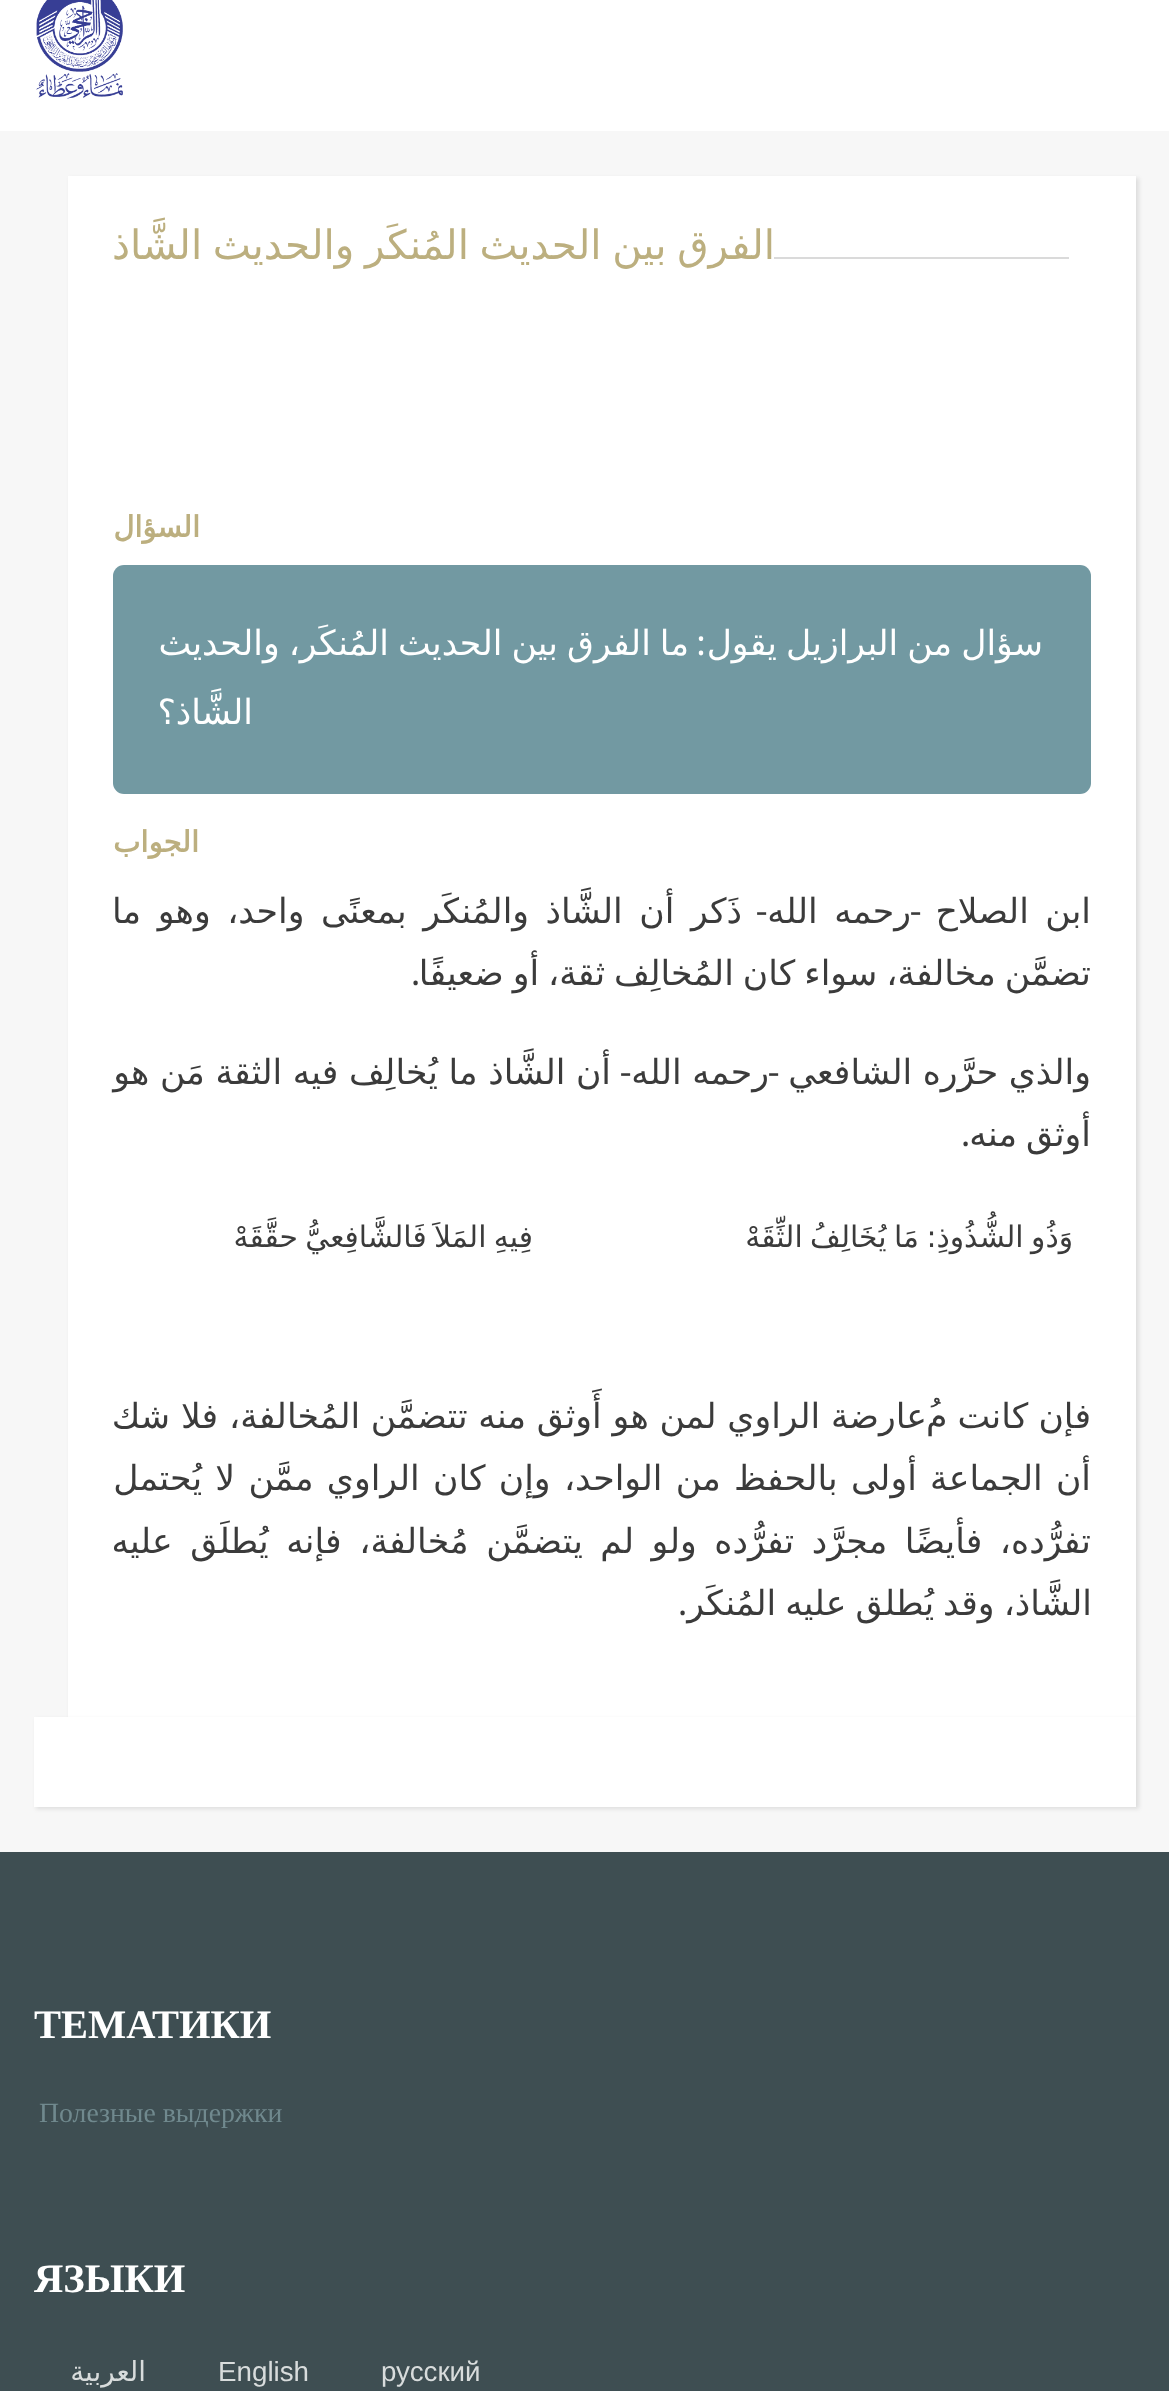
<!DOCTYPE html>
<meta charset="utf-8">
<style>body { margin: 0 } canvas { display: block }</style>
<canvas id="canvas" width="1169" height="2391"></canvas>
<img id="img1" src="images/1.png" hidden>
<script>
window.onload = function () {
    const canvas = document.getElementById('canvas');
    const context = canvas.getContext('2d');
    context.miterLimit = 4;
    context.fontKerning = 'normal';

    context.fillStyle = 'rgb(247, 247, 247)';
    context.fillRect(0, 0, 1169, 2391);
    context.fillStyle = 'rgb(255, 255, 255)';
    context.fillRect(0, 0, 1169, 131);
    context.drawImage(document.getElementById('img1'), 36, 0, 87, 99);
    context.fillStyle = 'rgba(0, 0, 0, 0.1)';
    context.filter = 'blur(2px)';
    context.beginPath();
    context.rect(70, 178, 1069, 1541);
    context.fill();
    context.filter = 'none';
    context.fillStyle = 'rgb(255, 255, 255)';
    context.fillRect(68, 176, 1068, 1541);
    context.fillStyle = 'rgb(114, 153, 162)';
    context.beginPath();
    context.roundRect(113, 565, 978, 229, 11);
    context.fill();
    context.fillStyle = 'rgba(0, 0, 0, 0.1)';
    context.filter = 'blur(2px)';
    context.beginPath();
    context.rect(36, 1719, 1103, 90);
    context.fill();
    context.filter = 'none';
    context.fillStyle = 'rgb(255, 255, 255)';
    context.fillRect(34, 1717, 1102, 90);
    context.fillStyle = 'rgb(62, 78, 82)';
    context.fillRect(0, 1852, 1169, 539);
    context.wordSpacing = '-2.25px';
    context.direction = 'rtl';
    context.font = '40.5px DejaVu Sans';
    context.fillStyle = 'rgb(188, 175, 127)';
    context.fillText('الفرق بين الحديث المُنكَر والحديث الشَّاذ', 775, 259);
    context.fillStyle = 'rgb(218, 218, 218)';
    context.fillRect(774, 257, 295, 2);
    context.wordSpacing = '0px';
    context.font = 'bold 29px DejaVu Sans';
    context.fillStyle = 'rgb(188, 175, 127)';
    context.fillText('السؤال', 200, 537);
    context.wordSpacing = '-2px';
    context.font = '34.7px DejaVu Sans';
    context.fillStyle = 'rgb(255, 255, 255)';
    context.fillText('سؤال من البرازيل يقول', 1043, 655);
    context.wordSpacing = '0px';
    context.font = '34.7px Noto Serif';
    context.fillText(':', 706, 655);
    context.wordSpacing = '-2px';
    context.font = '34.7px DejaVu Sans';
    context.fillText('ما الفرق بين الحديث المُنكَر، والحديث', 689, 655);
    context.wordSpacing = '0px';
    context.fillText('الشَّاذ؟', 253, 724);
    context.font = 'bold 29px DejaVu Sans';
    context.fillStyle = 'rgb(188, 175, 127)';
    context.fillText('الجواب', 199, 852);
    context.wordSpacing = '5.5px';
    context.font = '34.7px DejaVu Sans';
    context.fillStyle = 'rgb(59, 59, 59)';
    context.fillText('ابن الصلاح', 1091, 923);
    context.wordSpacing = '0px';
    context.font = '34.7px Noto Serif';
    context.fillText('-', 921, 923);
    context.wordSpacing = '5.5px';
    context.font = '34.7px DejaVu Sans';
    context.fillText('رحمه الله', 911, 923);
    context.wordSpacing = '0px';
    context.font = '34.7px Noto Serif';
    context.fillText('-', 767, 923);
    context.wordSpacing = '5.5px';
    context.font = '34.7px DejaVu Sans';
    context.fillText('ذَكر أن الشَّاذ والمُنكَر بمعنًى واحد، وهو ما', 742, 923);
    context.wordSpacing = '-2px';
    context.fillText('تضمَّن مخالفة، سواء كان المُخالِف ثقة، أو ضعيفًا', 1091, 985);
    context.wordSpacing = '0px';
    context.font = '34.7px Noto Serif';
    context.fillText('.', 420, 985);
    context.wordSpacing = '-0.5px';
    context.font = '34.7px DejaVu Sans';
    context.fillText('والذي حرَّره الشافعي', 1091, 1084);
    context.wordSpacing = '0px';
    context.font = '34.7px Noto Serif';
    context.fillText('-', 779, 1084);
    context.wordSpacing = '-0.5px';
    context.font = '34.7px DejaVu Sans';
    context.fillText('رحمه الله', 769, 1084);
    context.wordSpacing = '0px';
    context.font = '34.7px Noto Serif';
    context.fillText('-', 631, 1084);
    context.wordSpacing = '-0.5px';
    context.font = '34.7px DejaVu Sans';
    context.fillText('أن الشَّاذ ما يُخالِف فيه الثقة مَن هو', 611, 1084);
    context.wordSpacing = '-2px';
    context.fillText('أوثق منه', 1091, 1146);
    context.wordSpacing = '0px';
    context.font = '34.7px Noto Serif';
    context.fillText('.', 970, 1146);
    context.wordSpacing = '-2px';
    context.font = '29.75px DejaVu Sans';
    context.fillText('وَذُو الشُّذُوذِ: مَا يُخَالِفُ الثِّقَهْ', 1073, 1247);
    context.fillText('فِيهِ المَلاَ فَالشَّافِعيُّ حقَّقَهْ', 533, 1247);
    context.wordSpacing = '-1px';
    context.font = '34.7px DejaVu Sans';
    context.fillText('فإن كانت م', 1091, 1428);
    context.wordSpacing = '-0.25px';
    context.fillText('ُعارضة الراوي لمن هو أَوثق منه تتضمَّن المُخالفة، فلا شك', 927, 1428);
    context.wordSpacing = '2.25px';
    context.fillText('أن الجماعة أولى بالحفظ من الواحد، وإن كان الراوي ممَّن لا يُحتمل', 1091, 1490);
    context.wordSpacing = '6.5px';
    context.fillText('تفرُّده، فأيضًا مجرَّد تفرُّده ولو لم يتضمَّن مُخالفة، فإنه يُطلَق عليه', 1091, 1553);
    context.wordSpacing = '-2px';
    context.fillText('الشَّاذ، وقد يُطلق عليه المُنكَر', 1092, 1615);
    context.wordSpacing = '0px';
    context.font = '34.7px Noto Serif';
    context.fillText('.', 687, 1615);
    context.direction = 'ltr';
    context.font = 'bold 40.5px Liberation Serif';
    context.fillStyle = 'rgb(255, 255, 255)';
    context.fillText('ТЕМАТИКИ', 34, 2038);
    context.font = '27.75px Liberation Serif';
    context.fillStyle = 'rgb(112, 137, 142)';
    context.fillText('Полезные выдержки', 39, 2122);
    context.font = 'bold 40.5px Liberation Serif';
    context.fillStyle = 'rgb(255, 255, 255)';
    context.fillText('ЯЗЫКИ', 34, 2292);
    context.font = '27.75px Liberation Sans';
    context.fillStyle = 'rgb(216, 220, 220)';
    context.fillText('русский', 381, 2381);
    context.fillText('English', 218, 2381);
    context.direction = 'rtl';
    context.font = '27.75px DejaVu Sans';
    context.fillText('العربية', 146, 2381);
};
</script>
